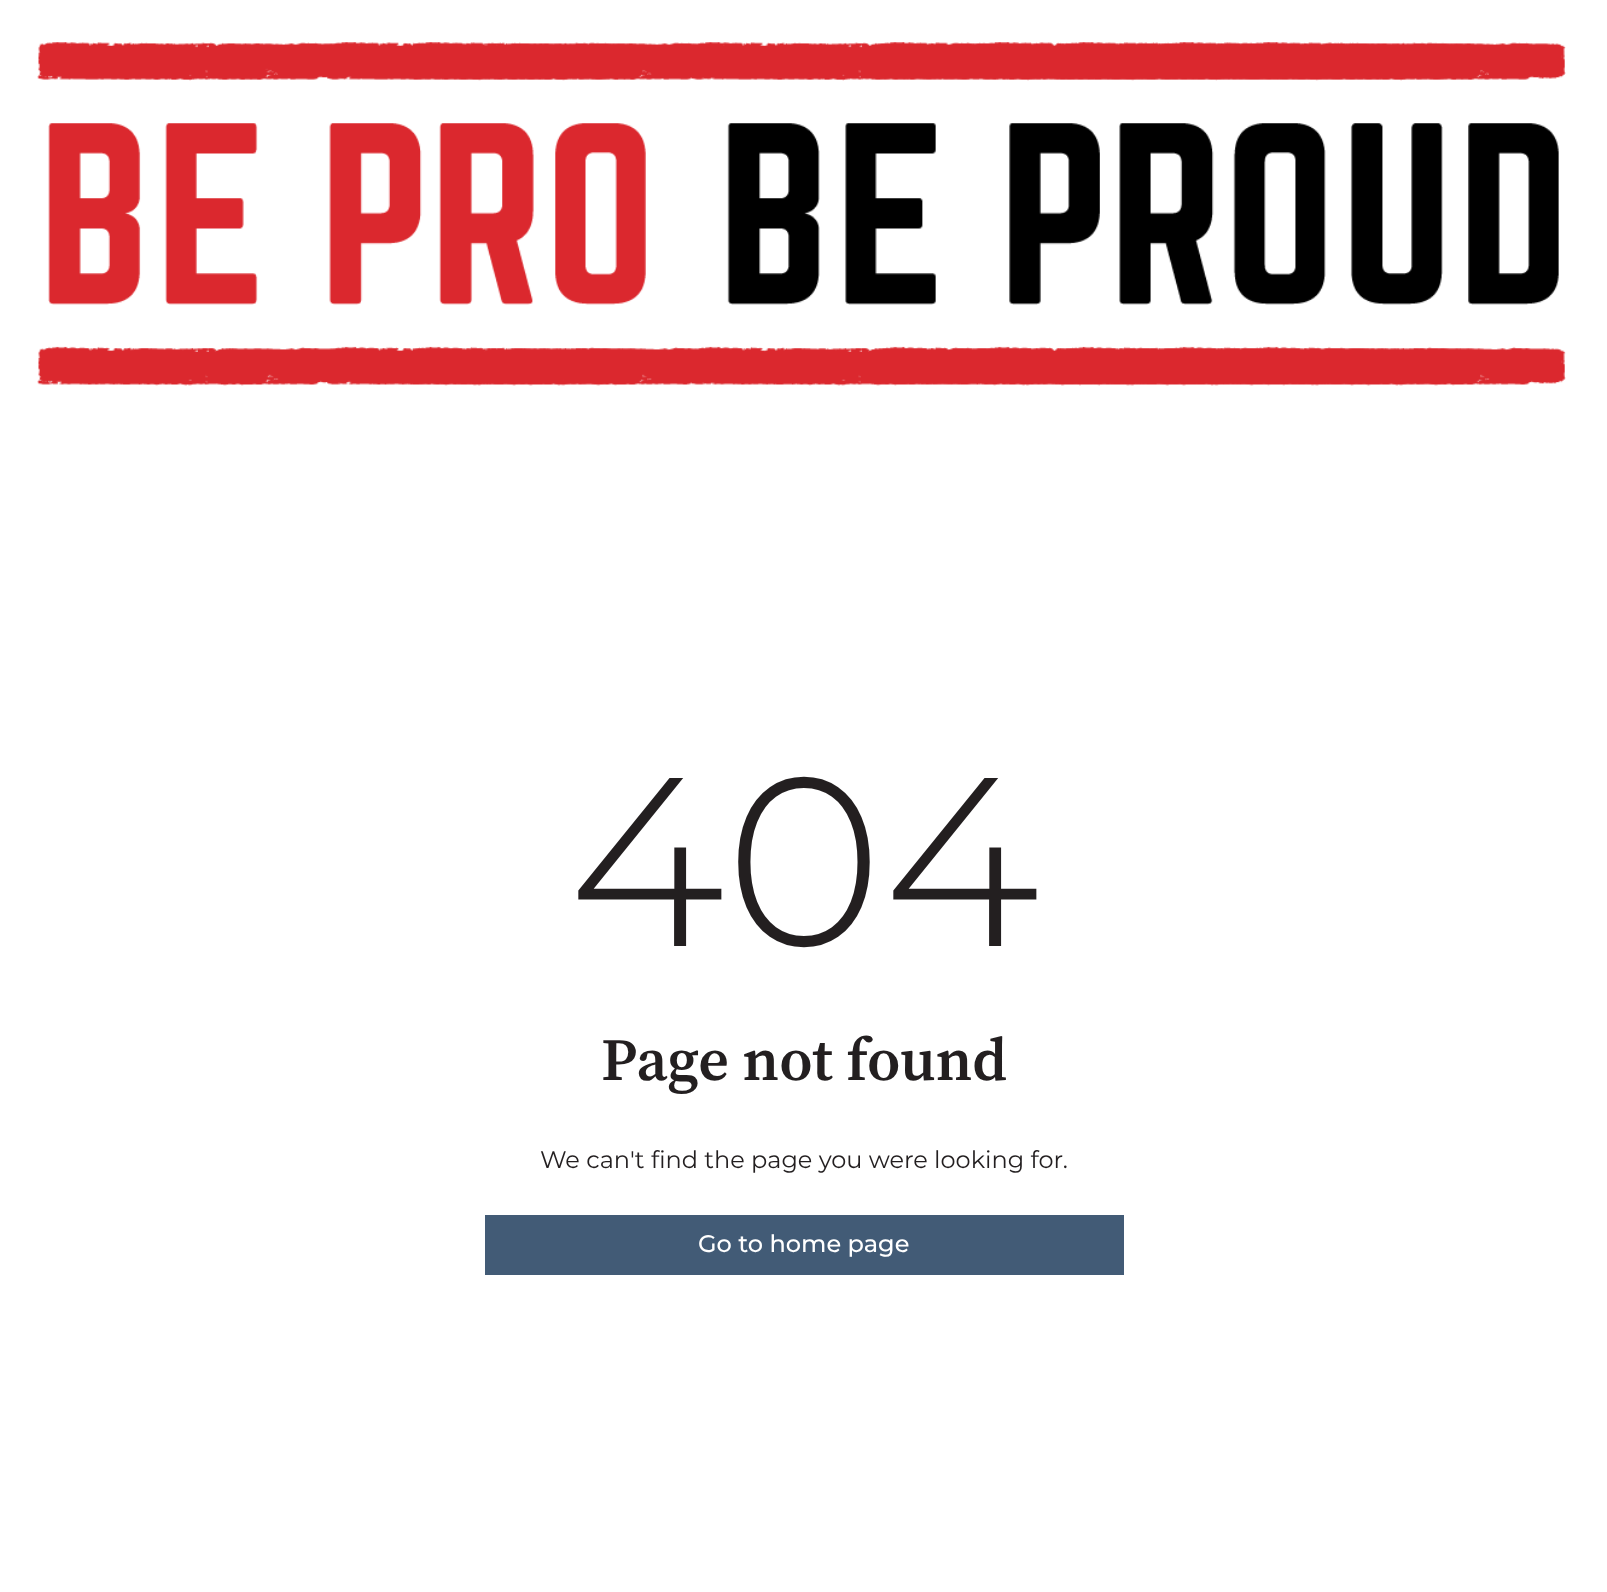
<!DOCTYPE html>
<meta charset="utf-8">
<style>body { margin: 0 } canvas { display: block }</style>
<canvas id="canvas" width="1607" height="1592"></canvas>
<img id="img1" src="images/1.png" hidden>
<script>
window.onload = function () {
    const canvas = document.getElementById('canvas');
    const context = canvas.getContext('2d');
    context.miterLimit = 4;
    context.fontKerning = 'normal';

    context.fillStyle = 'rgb(255, 255, 255)';
    context.fillRect(0, 0, 1607, 1592);
    context.drawImage(document.getElementById('img1'), 37, 42, 1529, 344);
    context.fillStyle = 'rgb(66, 91, 118)';
    context.fillRect(485, 1215, 639, 60);
    context.font = '300 240px Montserrat';
    context.fillStyle = 'rgb(35, 31, 32)';
    context.fillText('404', 568, 946);
    context.font = '600 60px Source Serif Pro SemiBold';
    context.fillText('Page not found', 601, 1080);
    context.font = '24px Montserrat';
    context.fillText('We can\'t find the page you were looking for.', 540, 1168);
    context.font = '500 24px Montserrat';
    context.fillStyle = 'rgb(255, 255, 255)';
    context.fillText('Go to home page', 698, 1252);
};
</script>
